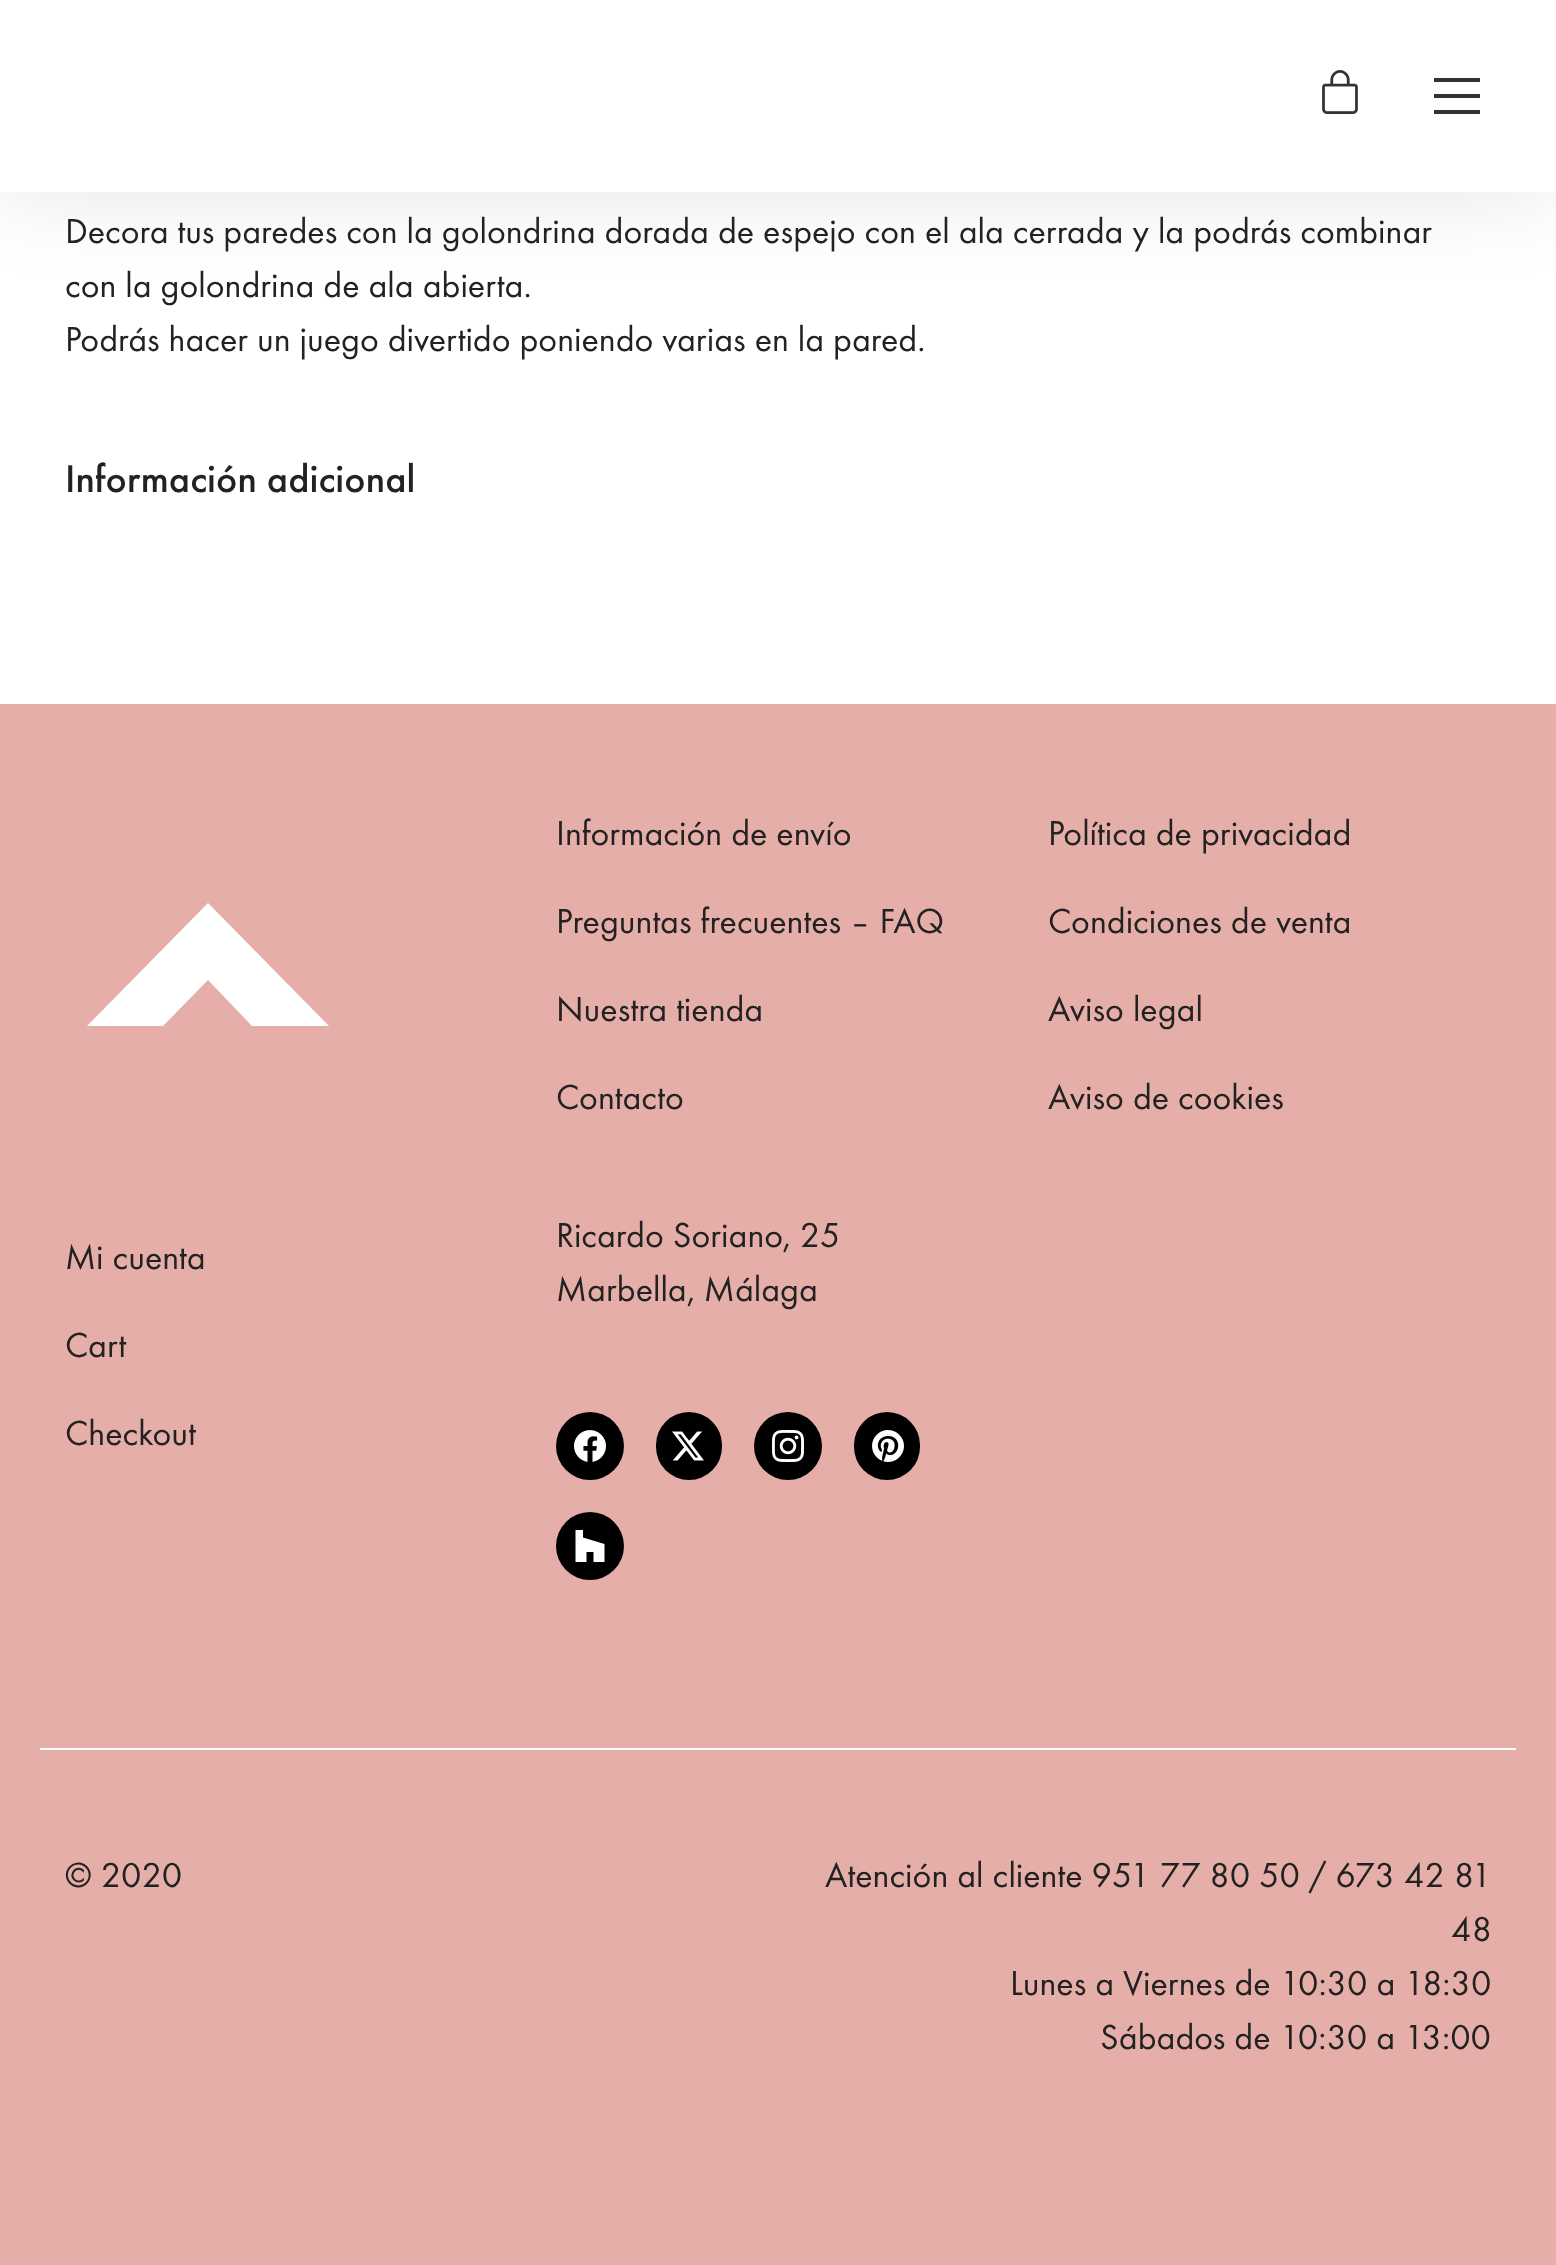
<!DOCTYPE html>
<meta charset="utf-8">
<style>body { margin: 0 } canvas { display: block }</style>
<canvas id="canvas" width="1556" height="2265"></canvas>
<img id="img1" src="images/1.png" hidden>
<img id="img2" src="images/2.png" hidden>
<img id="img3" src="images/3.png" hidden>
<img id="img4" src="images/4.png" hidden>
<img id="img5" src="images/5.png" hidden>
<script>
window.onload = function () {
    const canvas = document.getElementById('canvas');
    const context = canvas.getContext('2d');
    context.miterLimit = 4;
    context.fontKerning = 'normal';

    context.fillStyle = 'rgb(255, 255, 255)';
    context.fillRect(0, 0, 1556, 2265);
    context.fillStyle = 'rgba(0, 0, 0, 0.1)';
    context.filter = 'blur(45px)';
    context.beginPath();
    context.rect(0, 0, 1556, 192);
    context.fill();
    context.filter = 'none';
    context.fillStyle = 'rgb(255, 255, 255)';
    context.fillRect(0, 0, 1556, 192);
    context.drawImage(document.getElementById('img1'), 1322, 70, 36, 44);
    context.fillStyle = 'rgb(51, 51, 51)';
    context.fillRect(1434, 78, 46, 4);
    context.fillRect(1434, 94, 46, 4);
    context.fillRect(1434, 110, 46, 4);
    context.fillStyle = 'rgb(230, 174, 168)';
    context.fillRect(0, 704, 1556, 1561);
    context.fillStyle = 'rgb(255, 255, 255)';
    context.beginPath();
    context.moveTo(208, 980);
    context.lineTo(252, 1026);
    context.lineTo(329, 1026);
    context.lineTo(208, 903);
    context.lineTo(87, 1026);
    context.lineTo(163, 1026);
    context.closePath();
    context.fill();
    context.fillStyle = 'rgb(0, 0, 0)';
    context.beginPath();
    context.arc(590, 1446, 34, 0, 2 * Math.PI);
    context.fill();
    context.drawImage(document.getElementById('img2'), 574, 1430, 32, 32);
    context.beginPath();
    context.roundRect(656, 1412, 66, 68, 33);
    context.fill();
    context.drawImage(document.getElementById('img3'), 672, 1431, 32, 30);
    context.beginPath();
    context.arc(788, 1446, 34, 0, 2 * Math.PI);
    context.fill();
    context.drawImage(document.getElementById('img4'), 772, 1430, 32, 32);
    context.beginPath();
    context.roundRect(854, 1412, 66, 68, 33);
    context.fill();
    context.drawImage(document.getElementById('img5'), 872, 1430, 32, 32);
    context.beginPath();
    context.arc(590, 1546, 34, 0, 2 * Math.PI);
    context.fill();
    context.fillStyle = 'rgb(255, 255, 255)';
    context.beginPath();
    context.moveTo(575.5, 1530);
    context.lineTo(575.5, 1562);
    context.lineTo(586.5, 1562);
    context.lineTo(586.5, 1552);
    context.lineTo(593.5, 1552);
    context.lineTo(593.5, 1562);
    context.lineTo(604.5, 1562);
    context.lineTo(604.5, 1544);
    context.lineTo(583, 1537.5);
    context.lineTo(583, 1530);
    context.closePath();
    context.fill();
    context.fillRect(40, 1748, 1476, 2);
    context.font = '36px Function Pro';
    context.fillStyle = 'rgb(34, 34, 34)';
    context.fillText('Decora tus paredes con la golondrina dorada de espejo con el ala cerrada y la podrás combinar', 65, 243);
    context.fillText('con la golondrina de ala abierta.', 65, 297);
    context.fillText('Podrás hacer un juego divertido poniendo varias en la pared.', 65, 351);
    context.font = '500 40px Function Pro';
    context.fillText('Información adicional', 65, 492);
    context.font = '36px Function Pro';
    context.fillText('Información de envío', 556, 845);
    context.fillText('Preguntas frecuentes – FAQ', 556, 933);
    context.fillText('Nuestra tienda', 556, 1021);
    context.fillText('Contacto', 556, 1109);
    context.fillText('Política de privacidad', 1048, 845);
    context.fillText('Condiciones de venta', 1048, 933);
    context.fillText('Aviso legal', 1048, 1021);
    context.fillText('Aviso de cookies', 1048, 1109);
    context.fillText('Mi cuenta', 65, 1269);
    context.fillText('Cart', 65, 1357);
    context.fillText('Checkout', 65, 1445);
    context.fillText('Ricardo Soriano, 25', 556, 1247);
    context.fillText('Marbella, Málaga', 556, 1301);
    context.fillText('© 2020', 65, 1887);
    context.fillText('Atención al cliente 951 77 80 50 / 673 42 81', 825, 1887);
    context.fillText('48', 1451, 1941);
    context.fillText('Lunes a Viernes de 10:30 a 18:30', 1010, 1995);
    context.fillText('Sábados de 10:30 a 13:00', 1100, 2049);
};
</script>
